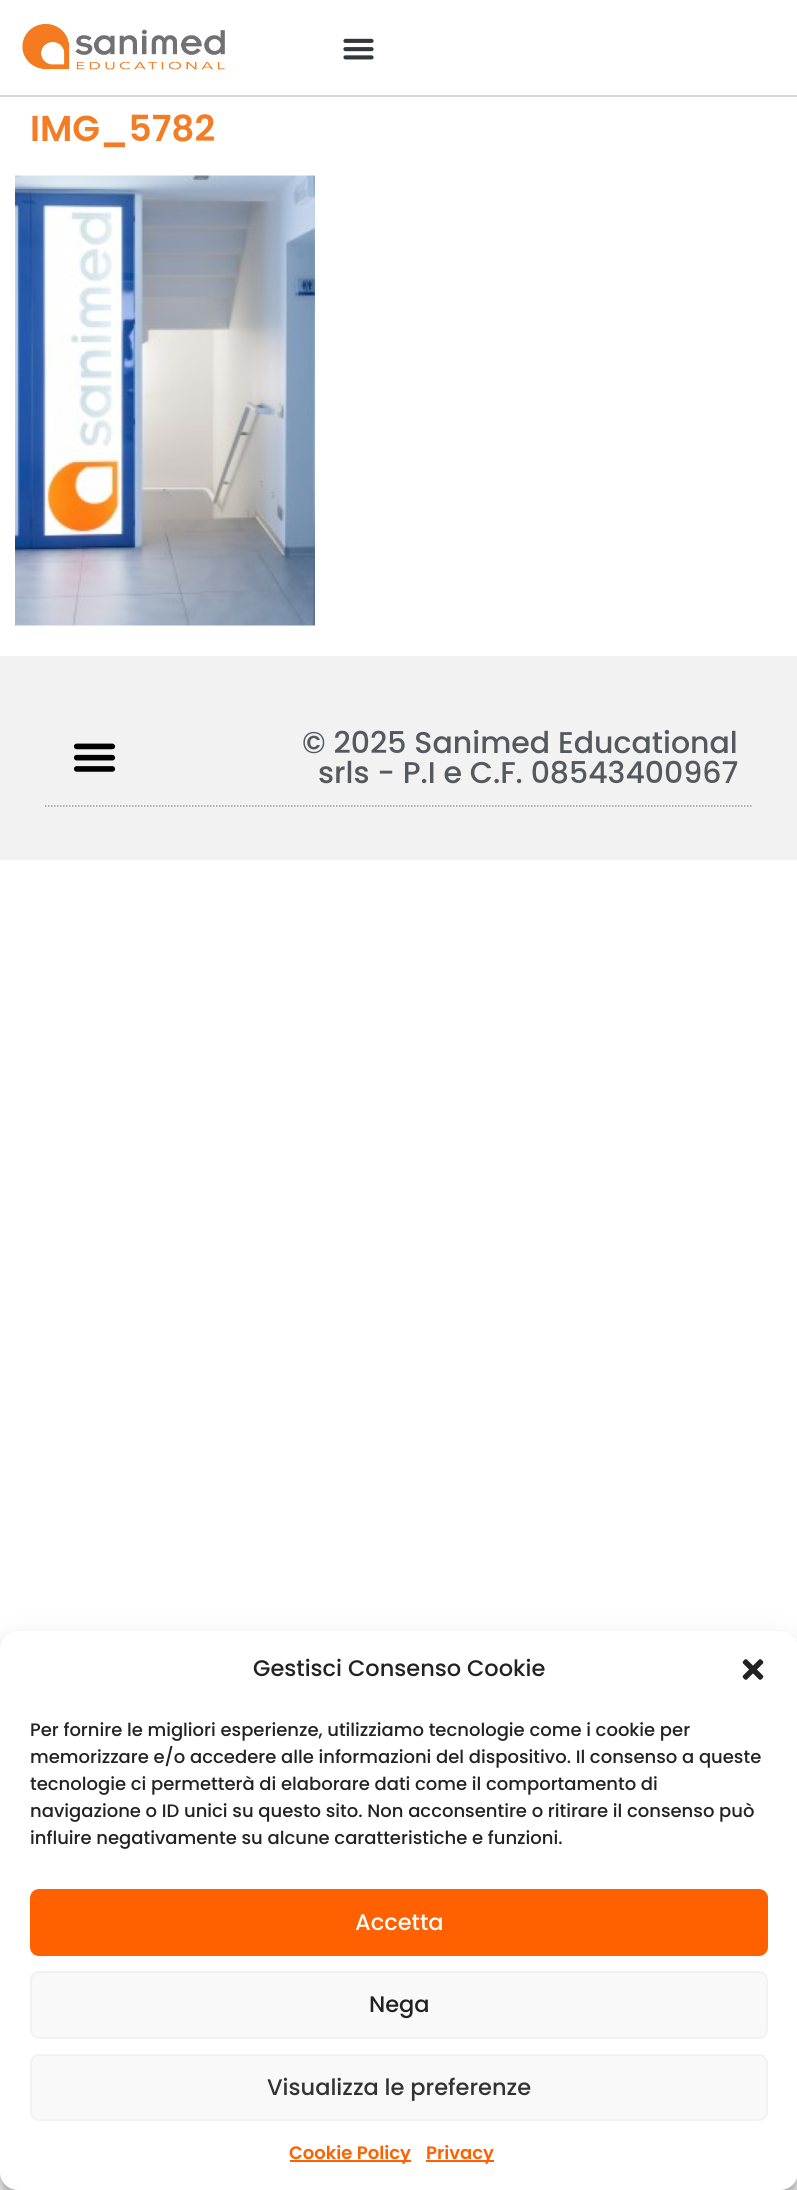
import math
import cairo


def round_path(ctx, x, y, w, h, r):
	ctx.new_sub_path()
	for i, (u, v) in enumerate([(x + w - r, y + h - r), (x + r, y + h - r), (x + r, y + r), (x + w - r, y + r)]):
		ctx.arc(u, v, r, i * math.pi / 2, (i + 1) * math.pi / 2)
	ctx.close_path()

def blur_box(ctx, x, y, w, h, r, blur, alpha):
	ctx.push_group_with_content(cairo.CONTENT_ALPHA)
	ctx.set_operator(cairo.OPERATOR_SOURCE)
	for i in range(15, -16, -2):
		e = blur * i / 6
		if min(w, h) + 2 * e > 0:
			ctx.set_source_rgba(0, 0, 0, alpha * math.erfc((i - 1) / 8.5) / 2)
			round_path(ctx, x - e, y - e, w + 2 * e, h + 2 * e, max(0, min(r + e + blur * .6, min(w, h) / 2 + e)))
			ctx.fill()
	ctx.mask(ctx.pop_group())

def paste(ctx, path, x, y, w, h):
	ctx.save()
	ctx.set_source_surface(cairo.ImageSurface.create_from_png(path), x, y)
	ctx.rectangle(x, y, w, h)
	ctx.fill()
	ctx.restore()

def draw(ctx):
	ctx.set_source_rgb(1, 1, 1)
	ctx.paint()
	ctx.set_source_rgb(0.839, 0.839, 0.839)
	ctx.rectangle(0, 95, 797, 2)
	ctx.fill()
	paste(ctx, 'media/1.png', 22, 24, 203, 46)
	paste(ctx, 'media/2.png', 343, 38, 31, 22)
	ctx.select_font_face('Poppins SemiBold')
	ctx.set_font_size(36)
	ctx.set_source_rgb(0.957, 0.486, 0.141)
	ctx.move_to(30, 141)
	ctx.show_text('IMG_5782')
	paste(ctx, 'media/3.png', 15, 175, 300, 451)
	ctx.set_source_rgb(0.949, 0.949, 0.949)
	ctx.rectangle(0, 656, 797, 204)
	ctx.fill()
	ctx.new_path()
	ctx.move_to(45, 806)
	ctx.line_to(753, 806)
	ctx.set_source_rgb(0.608, 0.608, 0.608)
	ctx.set_line_width(1.5)
	ctx.set_dash([1.5, 1.5])
	ctx.stroke()
	paste(ctx, 'media/4.png', 73, 743, 43, 29)
	ctx.select_font_face('Poppins Medium')
	ctx.set_font_size(30)
	ctx.set_source_rgb(0.329, 0.349, 0.373)
	ctx.move_to(302, 753)
	ctx.show_text('© 2025 Sanimed Educational')
	ctx.move_to(318, 783)
	ctx.show_text('srls - P.I e C.F. 08543400967')
	ctx.set_source_rgb(0, 0, 0)
	blur_box(ctx, 0, 1640, 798, 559, 18, 4.5, 0.23)
	blur_box(ctx, 0, 1646, 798, 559, 18, 15, 0.19)
	ctx.set_source_rgb(1, 1, 1)
	round_path(ctx, 0, 1631, 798, 559, 18)
	ctx.fill()
	ctx.set_font_size(22.5)
	ctx.set_source_rgb(0.133, 0.133, 0.133)
	ctx.move_to(253, 1676)
	ctx.show_text('Gestisci Consenso Cookie')
	paste(ctx, 'media/5.png', 742, 1659, 22, 21)
	ctx.set_font_size(18)
	for x, y, s in [
		(30, 1736, 'Per fornire le migliori esperienze, utilizziamo tecnologie come i cookie per'),
		(30, 1763, 'memorizzare e/o accedere alle informazioni del dispositivo. Il consenso a queste'),
		(30, 1790, 'tecnologie ci permetterà di elaborare dati come il comportamento di'),
		(30, 1817, 'navigazione o ID unici su questo sito. Non acconsentire o ritirare il consenso può'),
		(30, 1844, 'influire negativamente su alcune caratteristiche e funzioni.'),
	]:
		ctx.move_to(x, y)
		ctx.show_text(s)
	ctx.set_source_rgb(1, 0.38, 0)
	round_path(ctx, 31, 1890, 736, 65, 8)
	ctx.fill_preserve()
	ctx.set_line_width(2)
	ctx.set_dash([])
	ctx.stroke()
	ctx.set_font_size(22.5)
	ctx.set_source_rgb(1, 1, 1)
	ctx.move_to(355, 1930)
	ctx.show_text('Accetta')
	ctx.set_source_rgb(0.976, 0.976, 0.976)
	round_path(ctx, 31, 1972, 736, 66, 8)
	ctx.fill_preserve()
	ctx.set_source_rgb(0.949, 0.949, 0.949)
	ctx.stroke()
	ctx.set_source_rgb(0.133, 0.133, 0.133)
	ctx.move_to(369, 2012)
	ctx.show_text('Nega')
	ctx.set_source_rgb(0.976, 0.976, 0.976)
	round_path(ctx, 31, 2055, 736, 65, 8)
	ctx.fill_preserve()
	ctx.set_source_rgb(0.949, 0.949, 0.949)
	ctx.stroke()
	ctx.set_source_rgb(0.2, 0.2, 0.2)
	ctx.move_to(267, 2095)
	ctx.show_text('Visualizza le preferenze')
	ctx.set_source_rgb(1, 0.38, 0)
	ctx.rectangle(290, 2160, 121, 2)
	ctx.fill()
	ctx.select_font_face('Poppins SemiBold')
	ctx.set_font_size(18)
	ctx.move_to(289, 2159)
	ctx.show_text('Cookie Policy')
	ctx.rectangle(426, 2160, 68, 2)
	ctx.fill()
	ctx.move_to(426, 2159)
	ctx.show_text('Privacy')


surface = cairo.ImageSurface(cairo.FORMAT_RGB24, 797, 2190)
ctx = cairo.Context(surface)
options = cairo.FontOptions()
options.set_hint_metrics(cairo.HINT_METRICS_OFF)
options.set_hint_style(cairo.HINT_STYLE_NONE)
ctx.set_font_options(options)
ctx.set_miter_limit(4)
draw(ctx)
surface.write_to_png('image.png')
